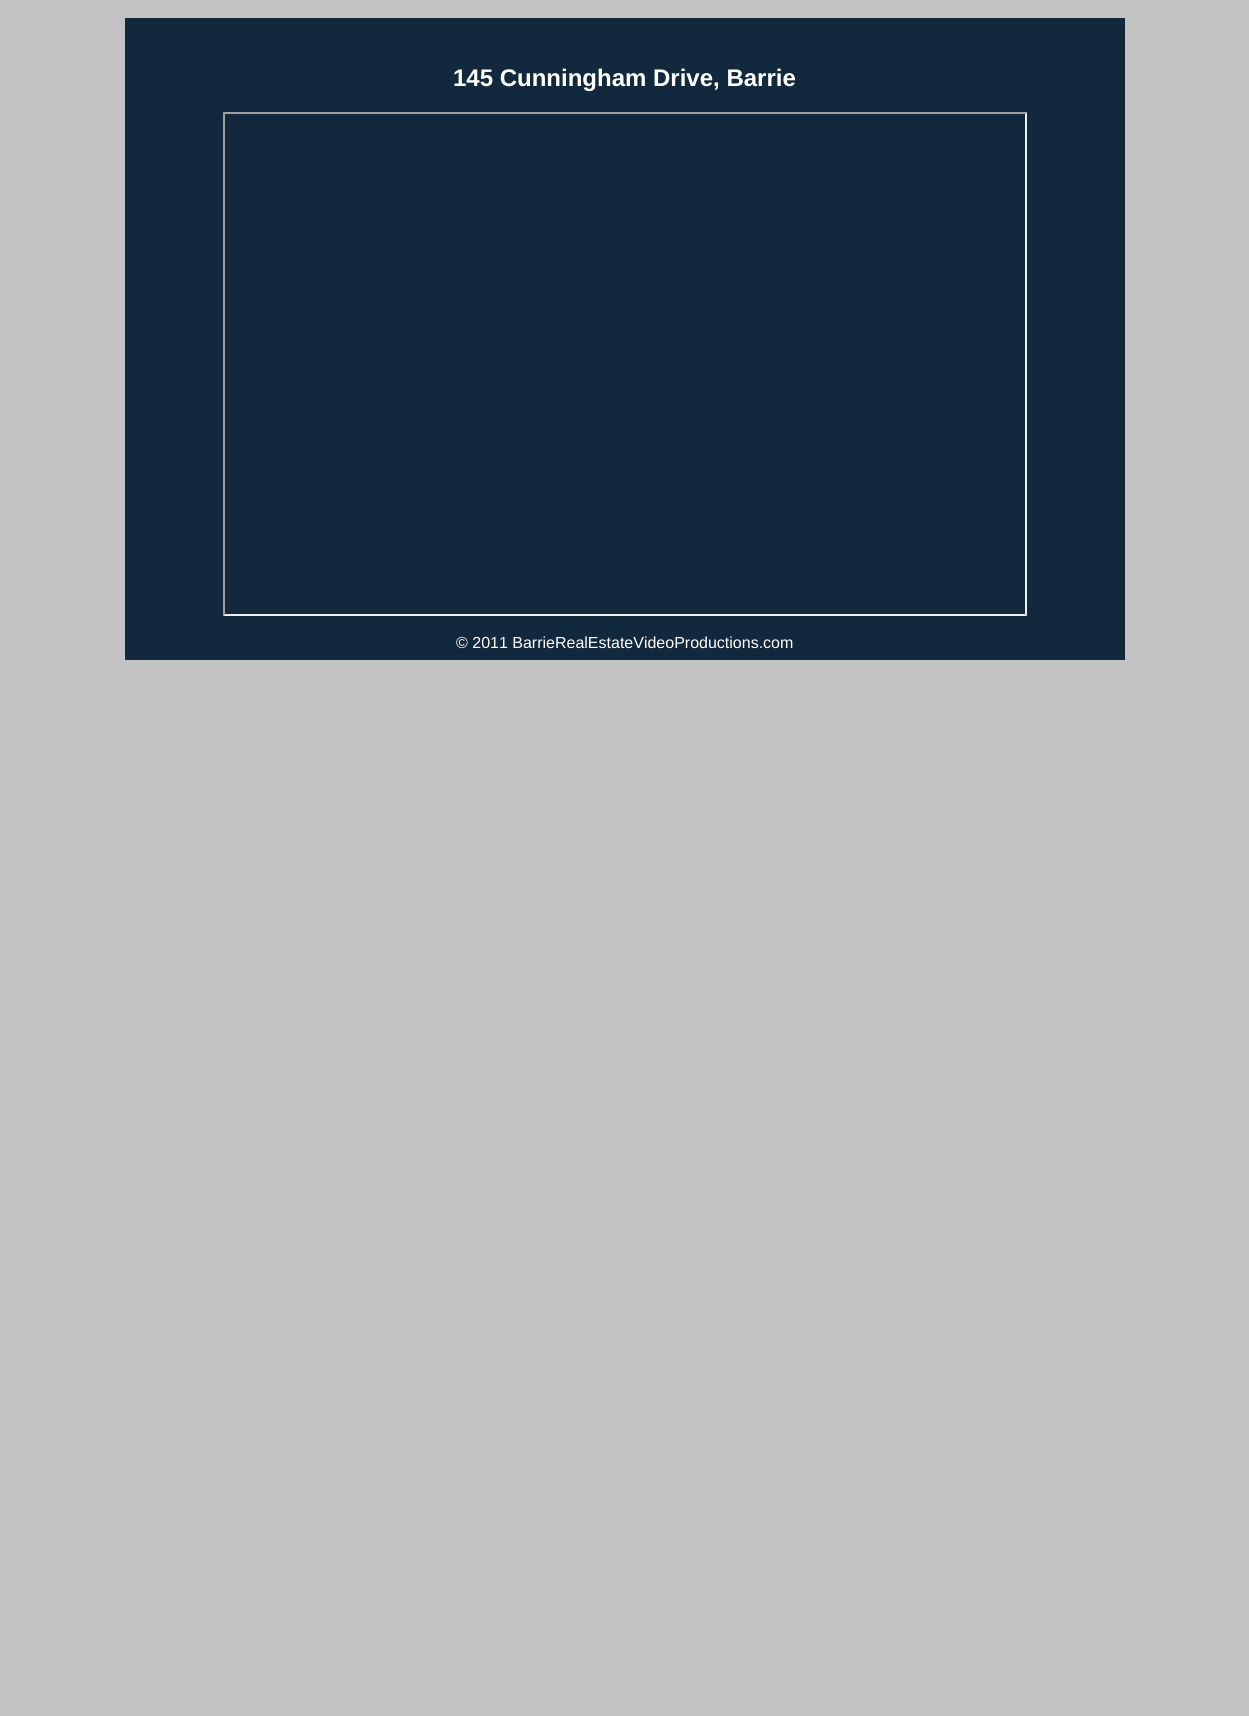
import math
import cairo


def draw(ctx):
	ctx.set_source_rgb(0.761, 0.761, 0.761)
	ctx.paint()
	ctx.set_source_rgb(0.071, 0.157, 0.235)
	ctx.rectangle(125, 18, 1000, 642)
	ctx.fill()
	ctx.select_font_face('Liberation Sans', cairo.FONT_SLANT_NORMAL, cairo.FONT_WEIGHT_BOLD)
	ctx.set_font_size(24)
	ctx.set_source_rgb(1, 1, 1)
	ctx.move_to(453, 86)
	ctx.show_text('145 Cunningham Drive, Barrie')
	ctx.set_source_rgb(0.624, 0.624, 0.624)
	ctx.new_path()
	ctx.move_to(223, 112)
	ctx.line_to(1027, 112)
	ctx.line_to(1025, 114)
	ctx.line_to(225, 114)
	ctx.close_path()
	ctx.fill()
	ctx.set_source_rgb(0.933, 0.933, 0.933)
	ctx.new_path()
	ctx.move_to(1027, 112)
	ctx.line_to(1027, 616)
	ctx.line_to(1025, 614)
	ctx.line_to(1025, 114)
	ctx.close_path()
	ctx.fill()
	ctx.new_path()
	ctx.move_to(1027, 616)
	ctx.line_to(223, 616)
	ctx.line_to(225, 614)
	ctx.line_to(1025, 614)
	ctx.close_path()
	ctx.fill()
	ctx.set_source_rgb(0.624, 0.624, 0.624)
	ctx.new_path()
	ctx.move_to(223, 616)
	ctx.line_to(223, 112)
	ctx.line_to(225, 114)
	ctx.line_to(225, 614)
	ctx.close_path()
	ctx.fill()
	ctx.select_font_face('Liberation Sans')
	ctx.set_font_size(16)
	ctx.set_source_rgb(1, 1, 1)
	ctx.move_to(456, 648)
	ctx.show_text('© 2011 BarrieRealEstateVideoProductions.com')


surface = cairo.ImageSurface(cairo.FORMAT_RGB24, 1249, 1716)
ctx = cairo.Context(surface)
options = cairo.FontOptions()
options.set_hint_metrics(cairo.HINT_METRICS_OFF)
options.set_hint_style(cairo.HINT_STYLE_NONE)
ctx.set_font_options(options)
ctx.set_miter_limit(4)
draw(ctx)
surface.write_to_png('image.png')
